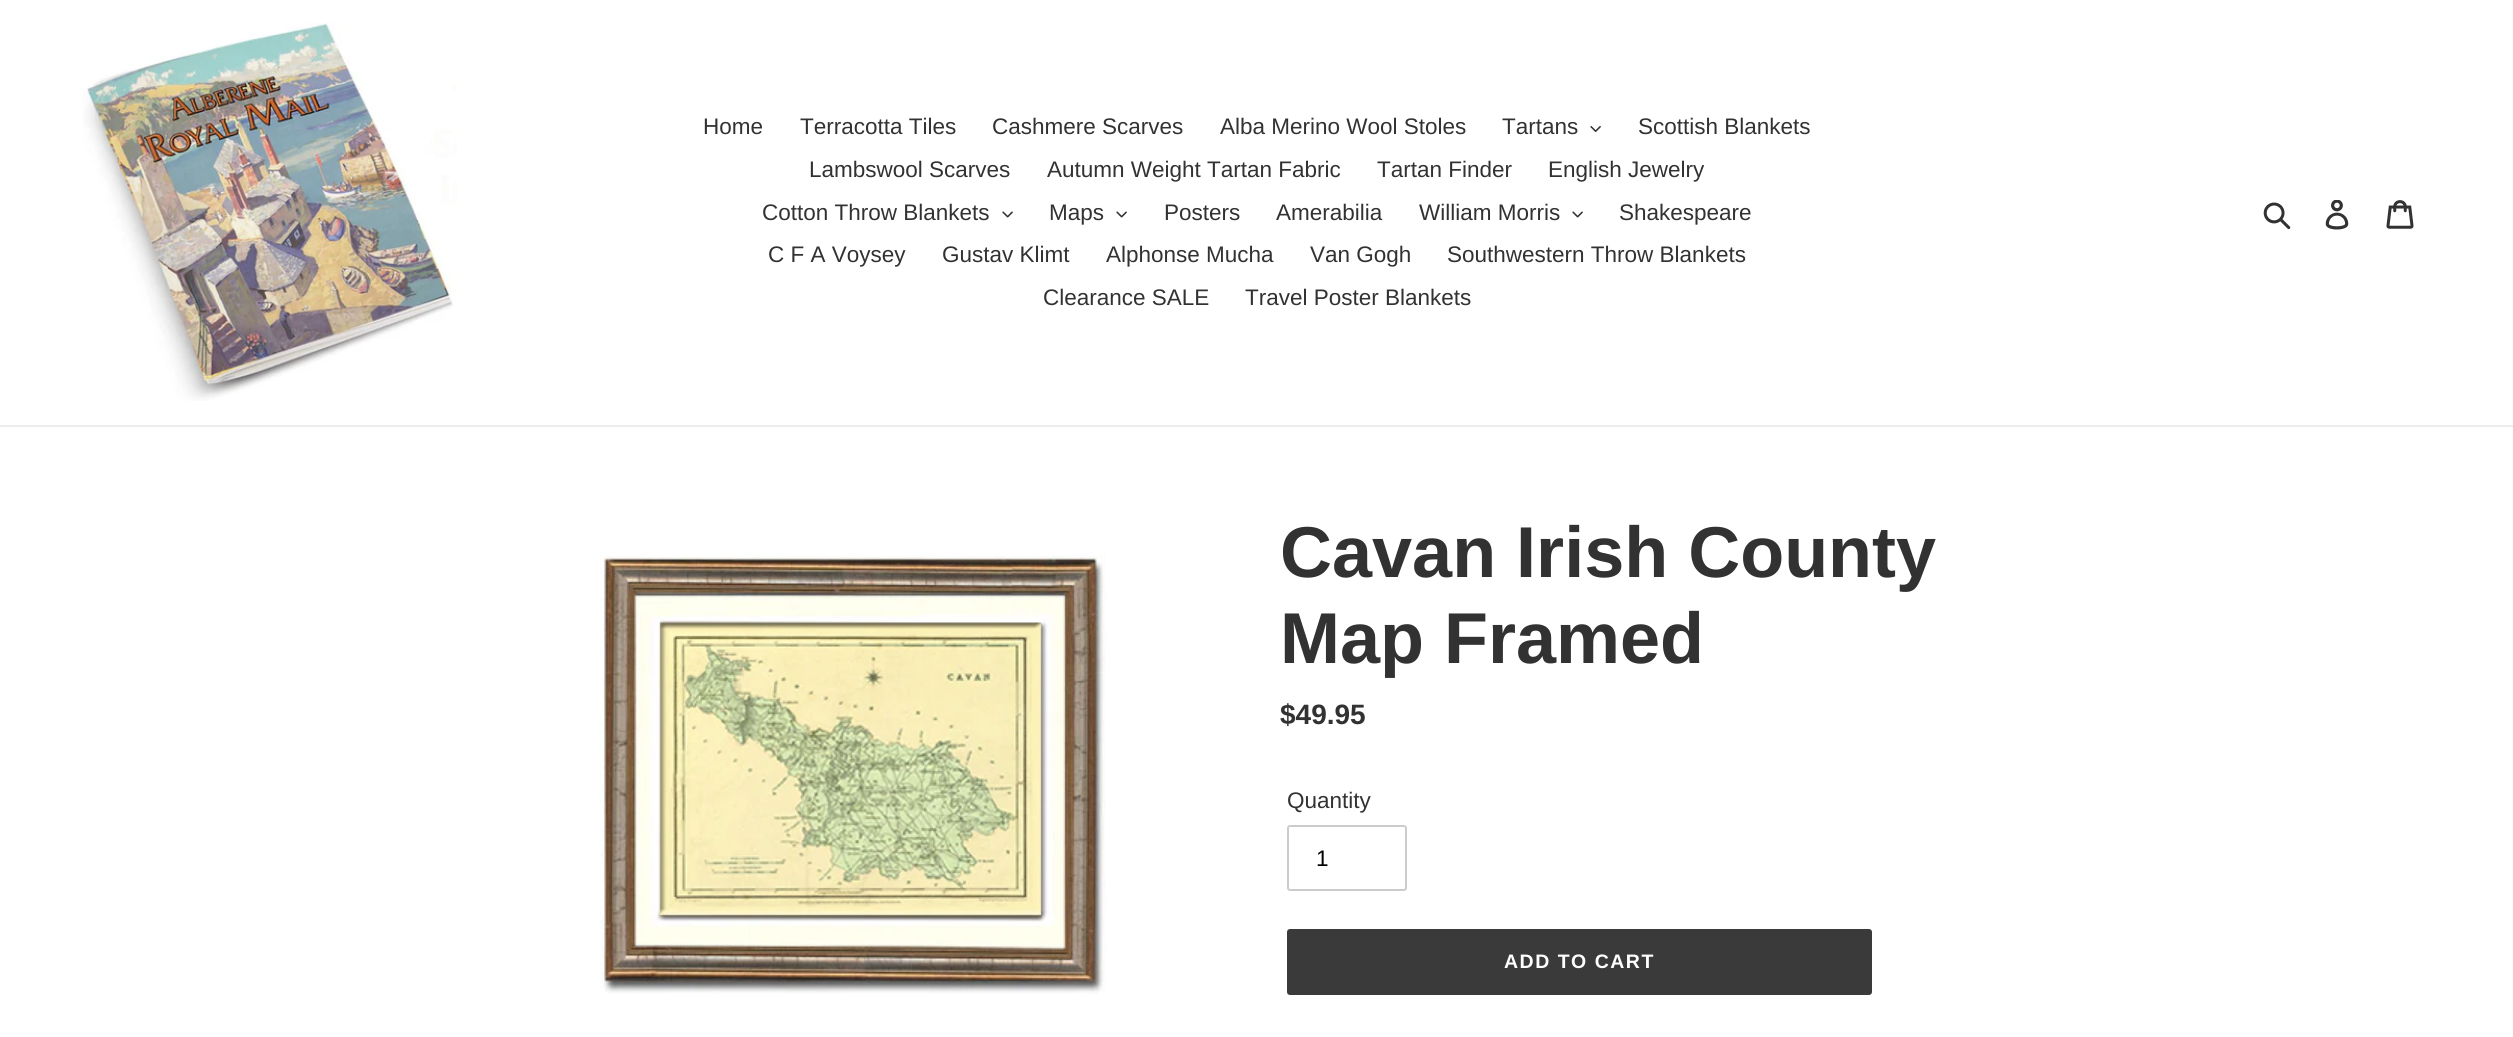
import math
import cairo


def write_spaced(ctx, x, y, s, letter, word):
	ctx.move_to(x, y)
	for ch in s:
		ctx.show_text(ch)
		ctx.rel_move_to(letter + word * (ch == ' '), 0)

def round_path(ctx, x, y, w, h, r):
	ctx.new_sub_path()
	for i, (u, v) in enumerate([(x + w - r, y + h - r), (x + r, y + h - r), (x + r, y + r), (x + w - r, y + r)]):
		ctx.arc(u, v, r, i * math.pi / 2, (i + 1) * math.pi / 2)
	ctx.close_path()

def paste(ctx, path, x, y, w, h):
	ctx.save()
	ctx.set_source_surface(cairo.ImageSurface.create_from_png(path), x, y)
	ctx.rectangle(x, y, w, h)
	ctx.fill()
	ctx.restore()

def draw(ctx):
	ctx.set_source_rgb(1, 1, 1)
	ctx.paint()
	ctx.set_source_rgb(0.922, 0.922, 0.922)
	ctx.rectangle(0, 425, 2513, 2)
	ctx.fill()
	paste(ctx, 'media/1.png', 82, 22, 375, 379)
	ctx.select_font_face('Liberation Sans')
	ctx.set_font_size(22.5)
	ctx.set_source_rgb(0.2, 0.196, 0.196)
	for x, y, s in [
		(703, 134, 'Home'),
		(800, 134, 'Terracotta Tiles'),
		(992, 134, 'Cashmere Scarves'),
		(1220, 134, 'Alba Merino Wool Stoles'),
		(1502, 134, 'Tartans'),
	]:
		ctx.move_to(x, y)
		ctx.show_text(s)
	paste(ctx, 'media/2.png', 1590, 126, 11, 6)
	for x, y, s in [
		(1638, 134, 'Scottish Blankets'),
		(809, 177, 'Lambswool Scarves'),
		(1047, 177, 'Autumn Weight Tartan Fabric'),
		(1377, 177, 'Tartan Finder'),
		(1548, 177, 'English Jewelry'),
		(762, 220, 'Cotton Throw Blankets'),
	]:
		ctx.move_to(x, y)
		ctx.show_text(s)
	paste(ctx, 'media/3.png', 1002, 211, 11, 7)
	ctx.move_to(1049, 220)
	ctx.show_text('Maps')
	paste(ctx, 'media/3.png', 1116, 211, 11, 7)
	for x, y, s in [
		(1164, 220, 'Posters'),
		(1276, 220, 'Amerabilia'),
		(1419, 220, 'William Morris'),
	]:
		ctx.move_to(x, y)
		ctx.show_text(s)
	paste(ctx, 'media/3.png', 1572, 211, 11, 7)
	for x, y, s in [
		(1619, 220, 'Shakespeare'),
		(768, 262, 'C F A Voysey'),
		(942, 262, 'Gustav Klimt'),
		(1106, 262, 'Alphonse Mucha'),
		(1310, 262, 'Van Gogh'),
		(1447, 262, 'Southwestern Throw Blankets'),
		(1043, 305, 'Clearance SALE'),
		(1245, 305, 'Travel Poster Blankets'),
	]:
		ctx.move_to(x, y)
		ctx.show_text(s)
	paste(ctx, 'media/4.png', 2263, 202, 28, 28)
	paste(ctx, 'media/5.png', 2325, 200, 24, 30)
	paste(ctx, 'media/6.png', 2386, 200, 28, 29)
	paste(ctx, 'media/7.png', 600, 555, 506, 439)
	ctx.select_font_face('Liberation Sans', cairo.FONT_SLANT_NORMAL, cairo.FONT_WEIGHT_BOLD)
	ctx.set_font_size(72)
	ctx.move_to(1280, 577)
	ctx.show_text('Cavan Irish County')
	ctx.move_to(1280, 663)
	ctx.show_text('Map Framed')
	ctx.set_font_size(28)
	ctx.move_to(1280, 724)
	ctx.show_text('$49.95')
	ctx.select_font_face('Liberation Sans')
	ctx.set_font_size(22.5)
	ctx.move_to(1287, 808)
	ctx.show_text('Quantity')
	round_path(ctx, 1288, 826, 118, 64, 2)
	ctx.set_source_rgb(0.8, 0.8, 0.8)
	ctx.stroke()
	ctx.set_source_rgb(0, 0, 0)
	ctx.move_to(1316, 866)
	ctx.show_text('1')
	ctx.set_source_rgb(0.227, 0.227, 0.227)
	round_path(ctx, 1287, 929, 585, 66, 3)
	ctx.fill()
	ctx.select_font_face('Liberation Sans', cairo.FONT_SLANT_NORMAL, cairo.FONT_WEIGHT_BOLD)
	ctx.set_font_size(19.5)
	ctx.set_source_rgb(1, 1, 1)
	write_spaced(ctx, 1504, 968, 'ADD TO CART', 1.5, 0)


surface = cairo.ImageSurface(cairo.FORMAT_RGB24, 2513, 1037)
ctx = cairo.Context(surface)
options = cairo.FontOptions()
options.set_hint_metrics(cairo.HINT_METRICS_OFF)
options.set_hint_style(cairo.HINT_STYLE_NONE)
ctx.set_font_options(options)
ctx.set_miter_limit(4)
draw(ctx)
surface.write_to_png('image.png')
